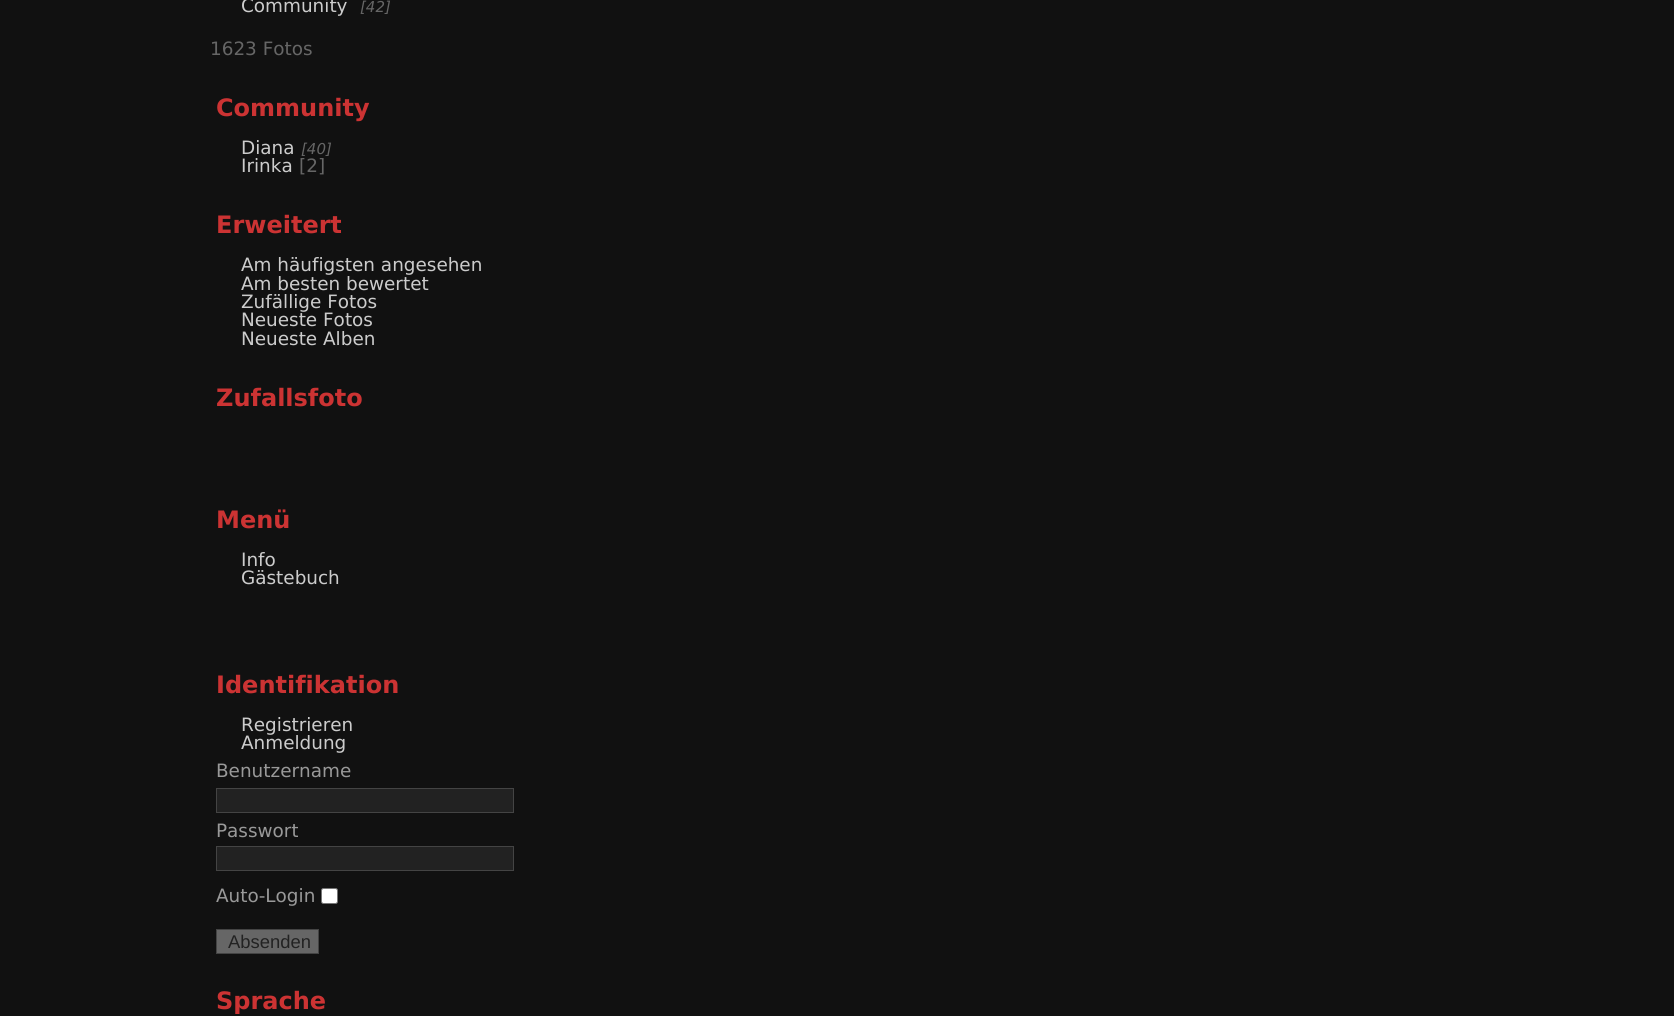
import math
import cairo


def round_path(ctx, x, y, w, h, r):
	ctx.new_sub_path()
	for i, (u, v) in enumerate([(x + w - r, y + h - r), (x + r, y + h - r), (x + r, y + r), (x + w - r, y + r)]):
		ctx.arc(u, v, r, i * math.pi / 2, (i + 1) * math.pi / 2)
	ctx.close_path()

def draw(ctx):
	ctx.set_source_rgb(0.067, 0.067, 0.067)
	ctx.paint()
	ctx.select_font_face('DejaVu Sans')
	ctx.set_font_size(18.4)
	ctx.set_source_rgb(0.8, 0.8, 0.8)
	ctx.move_to(241, 12)
	ctx.show_text('Community')
	ctx.select_font_face('DejaVu Sans', cairo.FONT_SLANT_ITALIC)
	ctx.set_font_size(15)
	ctx.set_source_rgb(0.4, 0.4, 0.4)
	ctx.move_to(360, 12)
	ctx.show_text('[42]')
	ctx.select_font_face('DejaVu Sans')
	ctx.set_font_size(18.4)
	ctx.move_to(210, 55)
	ctx.show_text('1623 Fotos')
	ctx.select_font_face('DejaVu Sans', cairo.FONT_SLANT_NORMAL, cairo.FONT_WEIGHT_BOLD)
	ctx.set_font_size(24)
	ctx.set_source_rgb(0.8, 0.2, 0.2)
	ctx.move_to(216, 116)
	ctx.show_text('Community')
	ctx.select_font_face('DejaVu Sans')
	ctx.set_font_size(18.4)
	ctx.set_source_rgb(0.8, 0.8, 0.8)
	ctx.move_to(241, 154)
	ctx.show_text('Diana')
	ctx.select_font_face('DejaVu Sans', cairo.FONT_SLANT_ITALIC)
	ctx.set_font_size(15)
	ctx.set_source_rgb(0.4, 0.4, 0.4)
	ctx.move_to(301, 154)
	ctx.show_text('[40]')
	ctx.select_font_face('DejaVu Sans')
	ctx.set_font_size(18.4)
	ctx.set_source_rgb(0.8, 0.8, 0.8)
	ctx.move_to(241, 172)
	ctx.show_text('Irinka')
	ctx.set_source_rgb(0.4, 0.4, 0.4)
	ctx.move_to(299, 172)
	ctx.show_text('[2]')
	ctx.select_font_face('DejaVu Sans', cairo.FONT_SLANT_NORMAL, cairo.FONT_WEIGHT_BOLD)
	ctx.set_font_size(24)
	ctx.set_source_rgb(0.8, 0.2, 0.2)
	ctx.move_to(216, 233)
	ctx.show_text('Erweitert')
	ctx.select_font_face('DejaVu Sans')
	ctx.set_font_size(18.4)
	ctx.set_source_rgb(0.8, 0.8, 0.8)
	for x, y, s in [
		(241, 271, 'Am häufigsten angesehen'),
		(241, 290, 'Am besten bewertet'),
		(241, 308, 'Zufällige Fotos'),
		(241, 326, 'Neueste Fotos'),
		(241, 345, 'Neueste Alben'),
	]:
		ctx.move_to(x, y)
		ctx.show_text(s)
	ctx.select_font_face('DejaVu Sans', cairo.FONT_SLANT_NORMAL, cairo.FONT_WEIGHT_BOLD)
	ctx.set_font_size(24)
	ctx.set_source_rgb(0.8, 0.2, 0.2)
	ctx.move_to(216, 406)
	ctx.show_text('Zufallsfoto')
	ctx.move_to(216, 528)
	ctx.show_text('Menü')
	ctx.select_font_face('DejaVu Sans')
	ctx.set_font_size(18.4)
	ctx.set_source_rgb(0.8, 0.8, 0.8)
	ctx.move_to(241, 566)
	ctx.show_text('Info')
	ctx.move_to(241, 584)
	ctx.show_text('Gästebuch')
	ctx.select_font_face('DejaVu Sans', cairo.FONT_SLANT_NORMAL, cairo.FONT_WEIGHT_BOLD)
	ctx.set_font_size(24)
	ctx.set_source_rgb(0.8, 0.2, 0.2)
	ctx.move_to(216, 693)
	ctx.show_text('Identifikation')
	ctx.select_font_face('DejaVu Sans')
	ctx.set_font_size(18.4)
	ctx.set_source_rgb(0.8, 0.8, 0.8)
	ctx.move_to(241, 731)
	ctx.show_text('Registrieren')
	ctx.move_to(241, 749)
	ctx.show_text('Anmeldung')
	ctx.set_source_rgb(0.6, 0.6, 0.6)
	ctx.move_to(216, 777)
	ctx.show_text('Benutzername')
	ctx.set_source_rgb(0.133, 0.133, 0.133)
	ctx.rectangle(216.5, 788.5, 297, 24)
	ctx.fill_preserve()
	ctx.set_source_rgb(0.267, 0.267, 0.267)
	ctx.set_line_width(1)
	ctx.stroke()
	ctx.set_source_rgb(0.6, 0.6, 0.6)
	ctx.move_to(216, 837)
	ctx.show_text('Passwort')
	ctx.set_source_rgb(0.133, 0.133, 0.133)
	ctx.rectangle(216.5, 846.5, 297, 24)
	ctx.fill_preserve()
	ctx.set_source_rgb(0.267, 0.267, 0.267)
	ctx.stroke()
	ctx.set_source_rgb(0.6, 0.6, 0.6)
	ctx.move_to(216, 902)
	ctx.show_text('Auto-Login')
	ctx.set_source_rgb(1, 1, 1)
	round_path(ctx, 321.5, 888.5, 16, 15, 2)
	ctx.fill_preserve()
	ctx.set_source_rgb(0.463, 0.463, 0.463)
	ctx.stroke()
	ctx.set_source_rgb(0.4, 0.4, 0.4)
	ctx.rectangle(216.5, 929.5, 102, 24)
	ctx.fill_preserve()
	ctx.set_source_rgb(0.267, 0.267, 0.267)
	ctx.stroke()
	ctx.select_font_face('Liberation Sans')
	ctx.set_source_rgb(0.133, 0.133, 0.133)
	ctx.move_to(228, 948)
	ctx.show_text('Absenden')
	ctx.select_font_face('DejaVu Sans', cairo.FONT_SLANT_NORMAL, cairo.FONT_WEIGHT_BOLD)
	ctx.set_font_size(24)
	ctx.set_source_rgb(0.8, 0.2, 0.2)
	ctx.move_to(216, 1009)
	ctx.show_text('Sprache')


surface = cairo.ImageSurface(cairo.FORMAT_RGB24, 1674, 1016)
ctx = cairo.Context(surface)
options = cairo.FontOptions()
options.set_hint_metrics(cairo.HINT_METRICS_OFF)
options.set_hint_style(cairo.HINT_STYLE_NONE)
ctx.set_font_options(options)
ctx.set_miter_limit(4)
draw(ctx)
surface.write_to_png('image.png')
